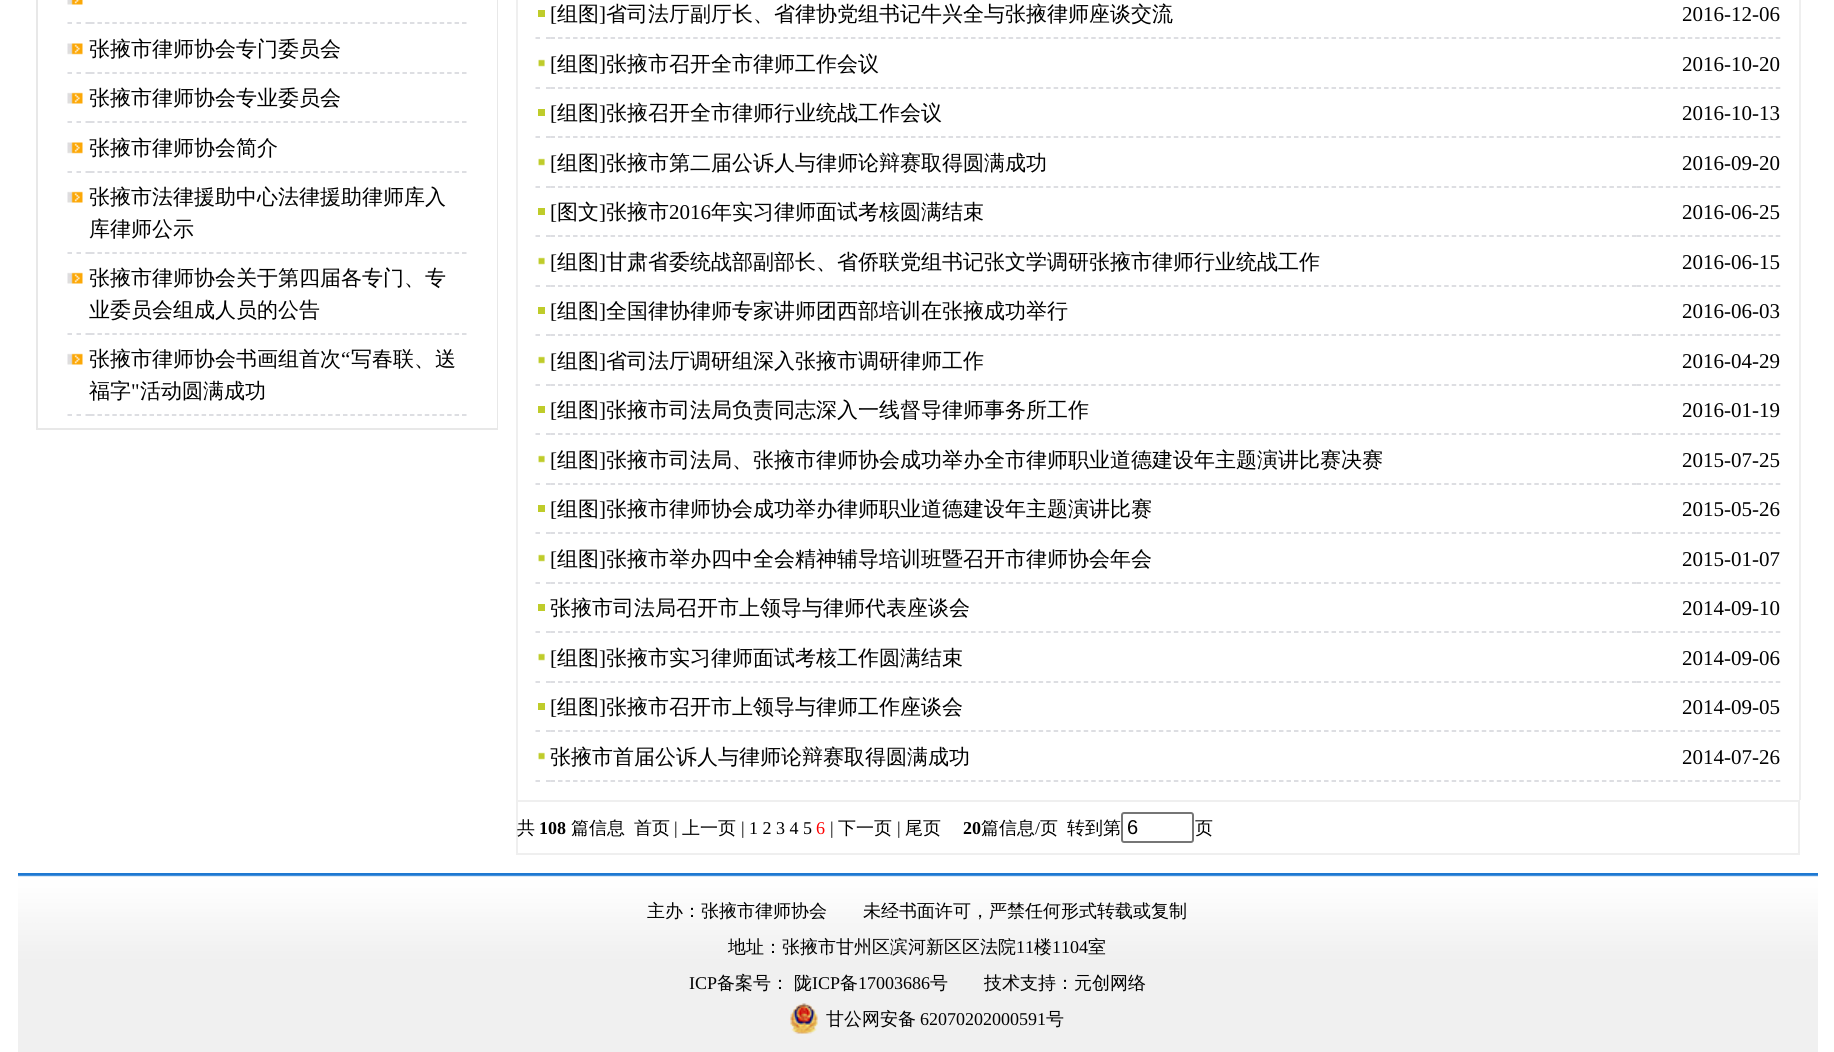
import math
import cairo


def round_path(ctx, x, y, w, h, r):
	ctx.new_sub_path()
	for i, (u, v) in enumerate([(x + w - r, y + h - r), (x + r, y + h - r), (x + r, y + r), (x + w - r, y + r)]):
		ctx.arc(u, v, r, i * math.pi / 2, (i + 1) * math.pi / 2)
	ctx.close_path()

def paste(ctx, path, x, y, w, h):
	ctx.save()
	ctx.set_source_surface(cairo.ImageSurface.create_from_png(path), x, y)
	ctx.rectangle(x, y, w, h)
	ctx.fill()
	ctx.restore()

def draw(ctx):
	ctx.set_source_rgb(1, 1, 1)
	ctx.paint()
	ctx.set_source_rgb(0.91, 0.91, 0.91)
	ctx.rectangle(497, 0, 1, 429)
	ctx.rectangle(36, 428, 462, 2)
	ctx.rectangle(36, 0, 2, 429)
	ctx.fill()
	ctx.new_path()
	ctx.move_to(67.5, 23)
	ctx.line_to(72, 23)
	ctx.move_to(76.5, 23)
	ctx.line_to(81, 23)
	ctx.move_to(85.5, 23)
	ctx.line_to(90, 23)
	ctx.set_source_rgb(0.824, 0.827, 0.851)
	ctx.set_line_width(1.5)
	ctx.stroke()
	paste(ctx, 'media/1.png', 67, 0, 16, 5)
	ctx.new_path()
	ctx.move_to(90, 23)
	ctx.line_to(466.5, 23)
	ctx.set_dash([4.5, 2.94])
	ctx.stroke()
	ctx.new_path()
	ctx.move_to(67.5, 73)
	ctx.line_to(72, 73)
	ctx.move_to(76.5, 73)
	ctx.line_to(81, 73)
	ctx.move_to(85.5, 73)
	ctx.line_to(90, 73)
	ctx.set_dash([])
	ctx.stroke()
	paste(ctx, 'media/2.png', 67, 43, 16, 12)
	ctx.new_path()
	ctx.move_to(90, 73)
	ctx.line_to(466.5, 73)
	ctx.set_dash([4.5, 2.94])
	ctx.stroke()
	ctx.select_font_face('WenQuanYi Zen Hei Medium')
	ctx.set_font_size(21)
	ctx.set_source_rgb(0, 0, 0)
	ctx.move_to(89, 56)
	ctx.show_text('张掖市律师协会专门委员会')
	ctx.new_path()
	ctx.move_to(67.5, 122)
	ctx.line_to(72, 122)
	ctx.move_to(76.5, 122)
	ctx.line_to(81, 122)
	ctx.move_to(85.5, 122)
	ctx.line_to(90, 122)
	ctx.set_source_rgb(0.824, 0.827, 0.851)
	ctx.set_dash([])
	ctx.stroke()
	paste(ctx, 'media/3.png', 67, 92, 16, 12)
	ctx.new_path()
	ctx.move_to(90, 122)
	ctx.line_to(466.5, 122)
	ctx.set_dash([4.5, 2.94])
	ctx.stroke()
	ctx.set_source_rgb(0, 0, 0)
	ctx.move_to(89, 105)
	ctx.show_text('张掖市律师协会专业委员会')
	ctx.new_path()
	ctx.move_to(67.5, 172)
	ctx.line_to(72, 172)
	ctx.move_to(76.5, 172)
	ctx.line_to(81, 172)
	ctx.move_to(85.5, 172)
	ctx.line_to(90, 172)
	ctx.set_source_rgb(0.824, 0.827, 0.851)
	ctx.set_dash([])
	ctx.stroke()
	paste(ctx, 'media/2.png', 67, 142, 16, 12)
	ctx.new_path()
	ctx.move_to(90, 172)
	ctx.line_to(466.5, 172)
	ctx.set_dash([4.5, 2.94])
	ctx.stroke()
	ctx.set_source_rgb(0, 0, 0)
	ctx.move_to(89, 155)
	ctx.show_text('张掖市律师协会简介')
	ctx.new_path()
	ctx.move_to(67.5, 253)
	ctx.line_to(72, 253)
	ctx.move_to(76.5, 253)
	ctx.line_to(81, 253)
	ctx.move_to(85.5, 253)
	ctx.line_to(90, 253)
	ctx.set_source_rgb(0.824, 0.827, 0.851)
	ctx.set_dash([])
	ctx.stroke()
	paste(ctx, 'media/3.png', 67, 191, 16, 12)
	ctx.new_path()
	ctx.move_to(90, 253)
	ctx.line_to(466.5, 253)
	ctx.set_dash([4.5, 2.94])
	ctx.stroke()
	ctx.set_source_rgb(0, 0, 0)
	ctx.move_to(89, 204)
	ctx.show_text('张掖市法律援助中心法律援助律师库入')
	ctx.move_to(89, 236)
	ctx.show_text('库律师公示')
	ctx.new_path()
	ctx.move_to(67.5, 334)
	ctx.line_to(72, 334)
	ctx.move_to(76.5, 334)
	ctx.line_to(81, 334)
	ctx.move_to(85.5, 334)
	ctx.line_to(90, 334)
	ctx.set_source_rgb(0.824, 0.827, 0.851)
	ctx.set_dash([])
	ctx.stroke()
	paste(ctx, 'media/3.png', 67, 272, 16, 12)
	ctx.new_path()
	ctx.move_to(90, 334)
	ctx.line_to(466.5, 334)
	ctx.set_dash([4.5, 2.94])
	ctx.stroke()
	ctx.set_source_rgb(0, 0, 0)
	ctx.move_to(89, 285)
	ctx.show_text('张掖市律师协会关于第四届各专门、专')
	ctx.move_to(89, 317)
	ctx.show_text('业委员会组成人员的公告')
	ctx.new_path()
	ctx.move_to(67.5, 415)
	ctx.line_to(72, 415)
	ctx.move_to(76.5, 415)
	ctx.line_to(81, 415)
	ctx.move_to(85.5, 415)
	ctx.line_to(90, 415)
	ctx.set_source_rgb(0.824, 0.827, 0.851)
	ctx.set_dash([])
	ctx.stroke()
	paste(ctx, 'media/3.png', 67, 353, 16, 12)
	ctx.new_path()
	ctx.move_to(90, 415)
	ctx.line_to(466.5, 415)
	ctx.set_dash([4.5, 2.94])
	ctx.stroke()
	ctx.set_source_rgb(0, 0, 0)
	ctx.move_to(89, 366)
	ctx.show_text('张掖市律师协会书画组首次')
	ctx.select_font_face('Liberation Serif')
	ctx.move_to(341, 366)
	ctx.show_text('“')
	ctx.select_font_face('WenQuanYi Zen Hei Medium')
	ctx.move_to(351, 366)
	ctx.show_text('写春联、送')
	ctx.move_to(89, 398)
	ctx.show_text('福字')
	ctx.select_font_face('Liberation Serif')
	ctx.move_to(131, 398)
	ctx.show_text('"')
	ctx.select_font_face('WenQuanYi Zen Hei Medium')
	ctx.move_to(140, 398)
	ctx.show_text('活动圆满成功')
	ctx.set_source_rgb(0.937, 0.937, 0.937)
	ctx.rectangle(1799, 0, 2, 800)
	ctx.fill()
	ctx.rectangle(516, 0, 2, 800)
	ctx.fill()
	ctx.new_path()
	ctx.move_to(535.5, 38)
	ctx.line_to(540, 38)
	ctx.move_to(546, 38)
	ctx.line_to(550.5, 38)
	ctx.set_source_rgb(0.824, 0.827, 0.851)
	ctx.set_dash([])
	ctx.stroke()
	ctx.set_source_rgb(0.749, 0.8, 0.165)
	ctx.rectangle(538, 10, 7, 7)
	ctx.fill()
	ctx.new_path()
	ctx.move_to(550.5, 38)
	ctx.line_to(1636.5, 38)
	ctx.set_source_rgb(0.824, 0.827, 0.851)
	ctx.set_dash([4.5, 3.01])
	ctx.stroke()
	ctx.select_font_face('Liberation Serif')
	ctx.set_source_rgb(0, 0, 0)
	ctx.move_to(550, 21)
	ctx.show_text('[')
	ctx.select_font_face('WenQuanYi Zen Hei Medium')
	ctx.move_to(557, 21)
	ctx.show_text('组图')
	ctx.select_font_face('Liberation Serif')
	ctx.move_to(599, 21)
	ctx.show_text(']')
	ctx.select_font_face('WenQuanYi Zen Hei Medium')
	ctx.move_to(606, 21)
	ctx.show_text('省司法厅副厅长、省律协党组书记牛兴全与张掖律师座谈交流')
	ctx.new_path()
	ctx.move_to(1636.5, 38)
	ctx.line_to(1780.5, 38)
	ctx.set_source_rgb(0.824, 0.827, 0.851)
	ctx.set_dash([4.5, 2.83])
	ctx.stroke()
	ctx.select_font_face('Liberation Serif')
	ctx.set_source_rgb(0, 0, 0)
	ctx.move_to(1682, 21)
	ctx.show_text('2016-12-06')
	ctx.new_path()
	ctx.move_to(535.5, 88)
	ctx.line_to(540, 88)
	ctx.move_to(546, 88)
	ctx.line_to(550.5, 88)
	ctx.set_source_rgb(0.824, 0.827, 0.851)
	ctx.set_dash([])
	ctx.stroke()
	paste(ctx, 'media/4.png', 538, 59, 7, 8)
	ctx.new_path()
	ctx.move_to(550.5, 88)
	ctx.line_to(1636.5, 88)
	ctx.set_dash([4.5, 3.01])
	ctx.stroke()
	ctx.set_source_rgb(0, 0, 0)
	ctx.move_to(550, 71)
	ctx.show_text('[')
	ctx.select_font_face('WenQuanYi Zen Hei Medium')
	ctx.move_to(557, 71)
	ctx.show_text('组图')
	ctx.select_font_face('Liberation Serif')
	ctx.move_to(599, 71)
	ctx.show_text(']')
	ctx.select_font_face('WenQuanYi Zen Hei Medium')
	ctx.move_to(606, 71)
	ctx.show_text('张掖市召开全市律师工作会议')
	ctx.new_path()
	ctx.move_to(1636.5, 88)
	ctx.line_to(1780.5, 88)
	ctx.set_source_rgb(0.824, 0.827, 0.851)
	ctx.set_dash([4.5, 2.83])
	ctx.stroke()
	ctx.select_font_face('Liberation Serif')
	ctx.set_source_rgb(0, 0, 0)
	ctx.move_to(1682, 71)
	ctx.show_text('2016-10-20')
	ctx.new_path()
	ctx.move_to(535.5, 137)
	ctx.line_to(540, 137)
	ctx.move_to(546, 137)
	ctx.line_to(550.5, 137)
	ctx.set_source_rgb(0.824, 0.827, 0.851)
	ctx.set_dash([])
	ctx.stroke()
	ctx.set_source_rgb(0.749, 0.8, 0.165)
	ctx.rectangle(538, 109, 7, 7)
	ctx.fill()
	ctx.new_path()
	ctx.move_to(550.5, 137)
	ctx.line_to(1636.5, 137)
	ctx.set_source_rgb(0.824, 0.827, 0.851)
	ctx.set_dash([4.5, 3.01])
	ctx.stroke()
	ctx.set_source_rgb(0, 0, 0)
	ctx.move_to(550, 120)
	ctx.show_text('[')
	ctx.select_font_face('WenQuanYi Zen Hei Medium')
	ctx.move_to(557, 120)
	ctx.show_text('组图')
	ctx.select_font_face('Liberation Serif')
	ctx.move_to(599, 120)
	ctx.show_text(']')
	ctx.select_font_face('WenQuanYi Zen Hei Medium')
	ctx.move_to(606, 120)
	ctx.show_text('张掖召开全市律师行业统战工作会议')
	ctx.new_path()
	ctx.move_to(1636.5, 137)
	ctx.line_to(1780.5, 137)
	ctx.set_source_rgb(0.824, 0.827, 0.851)
	ctx.set_dash([4.5, 2.83])
	ctx.stroke()
	ctx.select_font_face('Liberation Serif')
	ctx.set_source_rgb(0, 0, 0)
	ctx.move_to(1682, 120)
	ctx.show_text('2016-10-13')
	ctx.new_path()
	ctx.move_to(535.5, 187)
	ctx.line_to(540, 187)
	ctx.move_to(546, 187)
	ctx.line_to(550.5, 187)
	ctx.set_source_rgb(0.824, 0.827, 0.851)
	ctx.set_dash([])
	ctx.stroke()
	paste(ctx, 'media/4.png', 538, 158, 7, 8)
	ctx.new_path()
	ctx.move_to(550.5, 187)
	ctx.line_to(1636.5, 187)
	ctx.set_dash([4.5, 3.01])
	ctx.stroke()
	ctx.set_source_rgb(0, 0, 0)
	ctx.move_to(550, 170)
	ctx.show_text('[')
	ctx.select_font_face('WenQuanYi Zen Hei Medium')
	ctx.move_to(557, 170)
	ctx.show_text('组图')
	ctx.select_font_face('Liberation Serif')
	ctx.move_to(599, 170)
	ctx.show_text(']')
	ctx.select_font_face('WenQuanYi Zen Hei Medium')
	ctx.move_to(606, 170)
	ctx.show_text('张掖市第二届公诉人与律师论辩赛取得圆满成功')
	ctx.new_path()
	ctx.move_to(1636.5, 187)
	ctx.line_to(1780.5, 187)
	ctx.set_source_rgb(0.824, 0.827, 0.851)
	ctx.set_dash([4.5, 2.83])
	ctx.stroke()
	ctx.select_font_face('Liberation Serif')
	ctx.set_source_rgb(0, 0, 0)
	ctx.move_to(1682, 170)
	ctx.show_text('2016-09-20')
	ctx.new_path()
	ctx.move_to(535.5, 236)
	ctx.line_to(540, 236)
	ctx.move_to(546, 236)
	ctx.line_to(550.5, 236)
	ctx.set_source_rgb(0.824, 0.827, 0.851)
	ctx.set_dash([])
	ctx.stroke()
	ctx.set_source_rgb(0.749, 0.8, 0.165)
	ctx.rectangle(538, 208, 7, 7)
	ctx.fill()
	ctx.new_path()
	ctx.move_to(550.5, 236)
	ctx.line_to(1636.5, 236)
	ctx.set_source_rgb(0.824, 0.827, 0.851)
	ctx.set_dash([4.5, 3.01])
	ctx.stroke()
	ctx.set_source_rgb(0, 0, 0)
	ctx.move_to(550, 219)
	ctx.show_text('[')
	ctx.select_font_face('WenQuanYi Zen Hei Medium')
	ctx.move_to(557, 219)
	ctx.show_text('图文')
	ctx.select_font_face('Liberation Serif')
	ctx.move_to(599, 219)
	ctx.show_text(']')
	ctx.select_font_face('WenQuanYi Zen Hei Medium')
	ctx.move_to(606, 219)
	ctx.show_text('张掖市')
	ctx.select_font_face('Liberation Serif')
	ctx.move_to(669, 219)
	ctx.show_text('2016')
	ctx.select_font_face('WenQuanYi Zen Hei Medium')
	ctx.move_to(711, 219)
	ctx.show_text('年实习律师面试考核圆满结束')
	ctx.new_path()
	ctx.move_to(1636.5, 236)
	ctx.line_to(1780.5, 236)
	ctx.set_source_rgb(0.824, 0.827, 0.851)
	ctx.set_dash([4.5, 2.83])
	ctx.stroke()
	ctx.select_font_face('Liberation Serif')
	ctx.set_source_rgb(0, 0, 0)
	ctx.move_to(1682, 219)
	ctx.show_text('2016-06-25')
	ctx.new_path()
	ctx.move_to(535.5, 286)
	ctx.line_to(540, 286)
	ctx.move_to(546, 286)
	ctx.line_to(550.5, 286)
	ctx.set_source_rgb(0.824, 0.827, 0.851)
	ctx.set_dash([])
	ctx.stroke()
	paste(ctx, 'media/4.png', 538, 257, 7, 8)
	ctx.new_path()
	ctx.move_to(550.5, 286)
	ctx.line_to(1636.5, 286)
	ctx.set_dash([4.5, 3.01])
	ctx.stroke()
	ctx.set_source_rgb(0, 0, 0)
	ctx.move_to(550, 269)
	ctx.show_text('[')
	ctx.select_font_face('WenQuanYi Zen Hei Medium')
	ctx.move_to(557, 269)
	ctx.show_text('组图')
	ctx.select_font_face('Liberation Serif')
	ctx.move_to(599, 269)
	ctx.show_text(']')
	ctx.select_font_face('WenQuanYi Zen Hei Medium')
	ctx.move_to(606, 269)
	ctx.show_text('甘肃省委统战部副部长、省侨联党组书记张文学调研张掖市律师行业统战工作')
	ctx.new_path()
	ctx.move_to(1636.5, 286)
	ctx.line_to(1780.5, 286)
	ctx.set_source_rgb(0.824, 0.827, 0.851)
	ctx.set_dash([4.5, 2.83])
	ctx.stroke()
	ctx.select_font_face('Liberation Serif')
	ctx.set_source_rgb(0, 0, 0)
	ctx.move_to(1682, 269)
	ctx.show_text('2016-06-15')
	ctx.new_path()
	ctx.move_to(535.5, 335)
	ctx.line_to(540, 335)
	ctx.move_to(546, 335)
	ctx.line_to(550.5, 335)
	ctx.set_source_rgb(0.824, 0.827, 0.851)
	ctx.set_dash([])
	ctx.stroke()
	ctx.set_source_rgb(0.749, 0.8, 0.165)
	ctx.rectangle(538, 307, 7, 7)
	ctx.fill()
	ctx.new_path()
	ctx.move_to(550.5, 335)
	ctx.line_to(1636.5, 335)
	ctx.set_source_rgb(0.824, 0.827, 0.851)
	ctx.set_dash([4.5, 3.01])
	ctx.stroke()
	ctx.set_source_rgb(0, 0, 0)
	ctx.move_to(550, 318)
	ctx.show_text('[')
	ctx.select_font_face('WenQuanYi Zen Hei Medium')
	ctx.move_to(557, 318)
	ctx.show_text('组图')
	ctx.select_font_face('Liberation Serif')
	ctx.move_to(599, 318)
	ctx.show_text(']')
	ctx.select_font_face('WenQuanYi Zen Hei Medium')
	ctx.move_to(606, 318)
	ctx.show_text('全国律协律师专家讲师团西部培训在张掖成功举行')
	ctx.new_path()
	ctx.move_to(1636.5, 335)
	ctx.line_to(1780.5, 335)
	ctx.set_source_rgb(0.824, 0.827, 0.851)
	ctx.set_dash([4.5, 2.83])
	ctx.stroke()
	ctx.select_font_face('Liberation Serif')
	ctx.set_source_rgb(0, 0, 0)
	ctx.move_to(1682, 318)
	ctx.show_text('2016-06-03')
	ctx.new_path()
	ctx.move_to(535.5, 385)
	ctx.line_to(540, 385)
	ctx.move_to(546, 385)
	ctx.line_to(550.5, 385)
	ctx.set_source_rgb(0.824, 0.827, 0.851)
	ctx.set_dash([])
	ctx.stroke()
	paste(ctx, 'media/4.png', 538, 356, 7, 8)
	ctx.new_path()
	ctx.move_to(550.5, 385)
	ctx.line_to(1636.5, 385)
	ctx.set_dash([4.5, 3.01])
	ctx.stroke()
	ctx.set_source_rgb(0, 0, 0)
	ctx.move_to(550, 368)
	ctx.show_text('[')
	ctx.select_font_face('WenQuanYi Zen Hei Medium')
	ctx.move_to(557, 368)
	ctx.show_text('组图')
	ctx.select_font_face('Liberation Serif')
	ctx.move_to(599, 368)
	ctx.show_text(']')
	ctx.select_font_face('WenQuanYi Zen Hei Medium')
	ctx.move_to(606, 368)
	ctx.show_text('省司法厅调研组深入张掖市调研律师工作')
	ctx.new_path()
	ctx.move_to(1636.5, 385)
	ctx.line_to(1780.5, 385)
	ctx.set_source_rgb(0.824, 0.827, 0.851)
	ctx.set_dash([4.5, 2.83])
	ctx.stroke()
	ctx.select_font_face('Liberation Serif')
	ctx.set_source_rgb(0, 0, 0)
	ctx.move_to(1682, 368)
	ctx.show_text('2016-04-29')
	ctx.new_path()
	ctx.move_to(535.5, 434)
	ctx.line_to(540, 434)
	ctx.move_to(546, 434)
	ctx.line_to(550.5, 434)
	ctx.set_source_rgb(0.824, 0.827, 0.851)
	ctx.set_dash([])
	ctx.stroke()
	ctx.set_source_rgb(0.749, 0.8, 0.165)
	ctx.rectangle(538, 406, 7, 7)
	ctx.fill()
	ctx.new_path()
	ctx.move_to(550.5, 434)
	ctx.line_to(1636.5, 434)
	ctx.set_source_rgb(0.824, 0.827, 0.851)
	ctx.set_dash([4.5, 3.01])
	ctx.stroke()
	ctx.set_source_rgb(0, 0, 0)
	ctx.move_to(550, 417)
	ctx.show_text('[')
	ctx.select_font_face('WenQuanYi Zen Hei Medium')
	ctx.move_to(557, 417)
	ctx.show_text('组图')
	ctx.select_font_face('Liberation Serif')
	ctx.move_to(599, 417)
	ctx.show_text(']')
	ctx.select_font_face('WenQuanYi Zen Hei Medium')
	ctx.move_to(606, 417)
	ctx.show_text('张掖市司法局负责同志深入一线督导律师事务所工作')
	ctx.new_path()
	ctx.move_to(1636.5, 434)
	ctx.line_to(1780.5, 434)
	ctx.set_source_rgb(0.824, 0.827, 0.851)
	ctx.set_dash([4.5, 2.83])
	ctx.stroke()
	ctx.select_font_face('Liberation Serif')
	ctx.set_source_rgb(0, 0, 0)
	ctx.move_to(1682, 417)
	ctx.show_text('2016-01-19')
	ctx.new_path()
	ctx.move_to(535.5, 484)
	ctx.line_to(540, 484)
	ctx.move_to(546, 484)
	ctx.line_to(550.5, 484)
	ctx.set_source_rgb(0.824, 0.827, 0.851)
	ctx.set_dash([])
	ctx.stroke()
	paste(ctx, 'media/4.png', 538, 455, 7, 8)
	ctx.new_path()
	ctx.move_to(550.5, 484)
	ctx.line_to(1636.5, 484)
	ctx.set_dash([4.5, 3.01])
	ctx.stroke()
	ctx.set_source_rgb(0, 0, 0)
	ctx.move_to(550, 467)
	ctx.show_text('[')
	ctx.select_font_face('WenQuanYi Zen Hei Medium')
	ctx.move_to(557, 467)
	ctx.show_text('组图')
	ctx.select_font_face('Liberation Serif')
	ctx.move_to(599, 467)
	ctx.show_text(']')
	ctx.select_font_face('WenQuanYi Zen Hei Medium')
	ctx.move_to(606, 467)
	ctx.show_text('张掖市司法局、张掖市律师协会成功举办全市律师职业道德建设年主题演讲比赛决赛')
	ctx.new_path()
	ctx.move_to(1636.5, 484)
	ctx.line_to(1780.5, 484)
	ctx.set_source_rgb(0.824, 0.827, 0.851)
	ctx.set_dash([4.5, 2.83])
	ctx.stroke()
	ctx.select_font_face('Liberation Serif')
	ctx.set_source_rgb(0, 0, 0)
	ctx.move_to(1682, 467)
	ctx.show_text('2015-07-25')
	ctx.new_path()
	ctx.move_to(535.5, 533)
	ctx.line_to(540, 533)
	ctx.move_to(546, 533)
	ctx.line_to(550.5, 533)
	ctx.set_source_rgb(0.824, 0.827, 0.851)
	ctx.set_dash([])
	ctx.stroke()
	ctx.set_source_rgb(0.749, 0.8, 0.165)
	ctx.rectangle(538, 505, 7, 7)
	ctx.fill()
	ctx.new_path()
	ctx.move_to(550.5, 533)
	ctx.line_to(1636.5, 533)
	ctx.set_source_rgb(0.824, 0.827, 0.851)
	ctx.set_dash([4.5, 3.01])
	ctx.stroke()
	ctx.set_source_rgb(0, 0, 0)
	ctx.move_to(550, 516)
	ctx.show_text('[')
	ctx.select_font_face('WenQuanYi Zen Hei Medium')
	ctx.move_to(557, 516)
	ctx.show_text('组图')
	ctx.select_font_face('Liberation Serif')
	ctx.move_to(599, 516)
	ctx.show_text(']')
	ctx.select_font_face('WenQuanYi Zen Hei Medium')
	ctx.move_to(606, 516)
	ctx.show_text('张掖市律师协会成功举办律师职业道德建设年主题演讲比赛')
	ctx.new_path()
	ctx.move_to(1636.5, 533)
	ctx.line_to(1780.5, 533)
	ctx.set_source_rgb(0.824, 0.827, 0.851)
	ctx.set_dash([4.5, 2.83])
	ctx.stroke()
	ctx.select_font_face('Liberation Serif')
	ctx.set_source_rgb(0, 0, 0)
	ctx.move_to(1682, 516)
	ctx.show_text('2015-05-26')
	ctx.new_path()
	ctx.move_to(535.5, 583)
	ctx.line_to(540, 583)
	ctx.move_to(546, 583)
	ctx.line_to(550.5, 583)
	ctx.set_source_rgb(0.824, 0.827, 0.851)
	ctx.set_dash([])
	ctx.stroke()
	paste(ctx, 'media/4.png', 538, 554, 7, 8)
	ctx.new_path()
	ctx.move_to(550.5, 583)
	ctx.line_to(1636.5, 583)
	ctx.set_dash([4.5, 3.01])
	ctx.stroke()
	ctx.set_source_rgb(0, 0, 0)
	ctx.move_to(550, 566)
	ctx.show_text('[')
	ctx.select_font_face('WenQuanYi Zen Hei Medium')
	ctx.move_to(557, 566)
	ctx.show_text('组图')
	ctx.select_font_face('Liberation Serif')
	ctx.move_to(599, 566)
	ctx.show_text(']')
	ctx.select_font_face('WenQuanYi Zen Hei Medium')
	ctx.move_to(606, 566)
	ctx.show_text('张掖市举办四中全会精神辅导培训班暨召开市律师协会年会')
	ctx.new_path()
	ctx.move_to(1636.5, 583)
	ctx.line_to(1780.5, 583)
	ctx.set_source_rgb(0.824, 0.827, 0.851)
	ctx.set_dash([4.5, 2.83])
	ctx.stroke()
	ctx.select_font_face('Liberation Serif')
	ctx.set_source_rgb(0, 0, 0)
	ctx.move_to(1682, 566)
	ctx.show_text('2015-01-07')
	ctx.new_path()
	ctx.move_to(535.5, 632)
	ctx.line_to(540, 632)
	ctx.move_to(546, 632)
	ctx.line_to(550.5, 632)
	ctx.set_source_rgb(0.824, 0.827, 0.851)
	ctx.set_dash([])
	ctx.stroke()
	ctx.set_source_rgb(0.749, 0.8, 0.165)
	ctx.rectangle(538, 604, 7, 7)
	ctx.fill()
	ctx.new_path()
	ctx.move_to(550.5, 632)
	ctx.line_to(1636.5, 632)
	ctx.set_source_rgb(0.824, 0.827, 0.851)
	ctx.set_dash([4.5, 3.01])
	ctx.stroke()
	ctx.select_font_face('WenQuanYi Zen Hei Medium')
	ctx.set_source_rgb(0, 0, 0)
	ctx.move_to(550, 615)
	ctx.show_text('张掖市司法局召开市上领导与律师代表座谈会')
	ctx.new_path()
	ctx.move_to(1636.5, 632)
	ctx.line_to(1780.5, 632)
	ctx.set_source_rgb(0.824, 0.827, 0.851)
	ctx.set_dash([4.5, 2.83])
	ctx.stroke()
	ctx.select_font_face('Liberation Serif')
	ctx.set_source_rgb(0, 0, 0)
	ctx.move_to(1682, 615)
	ctx.show_text('2014-09-10')
	ctx.new_path()
	ctx.move_to(535.5, 682)
	ctx.line_to(540, 682)
	ctx.move_to(546, 682)
	ctx.line_to(550.5, 682)
	ctx.set_source_rgb(0.824, 0.827, 0.851)
	ctx.set_dash([])
	ctx.stroke()
	paste(ctx, 'media/4.png', 538, 653, 7, 8)
	ctx.new_path()
	ctx.move_to(550.5, 682)
	ctx.line_to(1636.5, 682)
	ctx.set_dash([4.5, 3.01])
	ctx.stroke()
	ctx.set_source_rgb(0, 0, 0)
	ctx.move_to(550, 665)
	ctx.show_text('[')
	ctx.select_font_face('WenQuanYi Zen Hei Medium')
	ctx.move_to(557, 665)
	ctx.show_text('组图')
	ctx.select_font_face('Liberation Serif')
	ctx.move_to(599, 665)
	ctx.show_text(']')
	ctx.select_font_face('WenQuanYi Zen Hei Medium')
	ctx.move_to(606, 665)
	ctx.show_text('张掖市实习律师面试考核工作圆满结束')
	ctx.new_path()
	ctx.move_to(1636.5, 682)
	ctx.line_to(1780.5, 682)
	ctx.set_source_rgb(0.824, 0.827, 0.851)
	ctx.set_dash([4.5, 2.83])
	ctx.stroke()
	ctx.select_font_face('Liberation Serif')
	ctx.set_source_rgb(0, 0, 0)
	ctx.move_to(1682, 665)
	ctx.show_text('2014-09-06')
	ctx.new_path()
	ctx.move_to(535.5, 731)
	ctx.line_to(540, 731)
	ctx.move_to(546, 731)
	ctx.line_to(550.5, 731)
	ctx.set_source_rgb(0.824, 0.827, 0.851)
	ctx.set_dash([])
	ctx.stroke()
	ctx.set_source_rgb(0.749, 0.8, 0.165)
	ctx.rectangle(538, 703, 7, 7)
	ctx.fill()
	ctx.new_path()
	ctx.move_to(550.5, 731)
	ctx.line_to(1636.5, 731)
	ctx.set_source_rgb(0.824, 0.827, 0.851)
	ctx.set_dash([4.5, 3.01])
	ctx.stroke()
	ctx.set_source_rgb(0, 0, 0)
	ctx.move_to(550, 714)
	ctx.show_text('[')
	ctx.select_font_face('WenQuanYi Zen Hei Medium')
	ctx.move_to(557, 714)
	ctx.show_text('组图')
	ctx.select_font_face('Liberation Serif')
	ctx.move_to(599, 714)
	ctx.show_text(']')
	ctx.select_font_face('WenQuanYi Zen Hei Medium')
	ctx.move_to(606, 714)
	ctx.show_text('张掖市召开市上领导与律师工作座谈会')
	ctx.new_path()
	ctx.move_to(1636.5, 731)
	ctx.line_to(1780.5, 731)
	ctx.set_source_rgb(0.824, 0.827, 0.851)
	ctx.set_dash([4.5, 2.83])
	ctx.stroke()
	ctx.select_font_face('Liberation Serif')
	ctx.set_source_rgb(0, 0, 0)
	ctx.move_to(1682, 714)
	ctx.show_text('2014-09-05')
	ctx.new_path()
	ctx.move_to(535.5, 781)
	ctx.line_to(540, 781)
	ctx.move_to(546, 781)
	ctx.line_to(550.5, 781)
	ctx.set_source_rgb(0.824, 0.827, 0.851)
	ctx.set_dash([])
	ctx.stroke()
	paste(ctx, 'media/4.png', 538, 752, 7, 8)
	ctx.new_path()
	ctx.move_to(550.5, 781)
	ctx.line_to(1636.5, 781)
	ctx.set_dash([4.5, 3.01])
	ctx.stroke()
	ctx.select_font_face('WenQuanYi Zen Hei Medium')
	ctx.set_source_rgb(0, 0, 0)
	ctx.move_to(550, 764)
	ctx.show_text('张掖市首届公诉人与律师论辩赛取得圆满成功')
	ctx.new_path()
	ctx.move_to(1636.5, 781)
	ctx.line_to(1780.5, 781)
	ctx.set_source_rgb(0.824, 0.827, 0.851)
	ctx.set_dash([4.5, 2.83])
	ctx.stroke()
	ctx.select_font_face('Liberation Serif')
	ctx.set_source_rgb(0, 0, 0)
	ctx.move_to(1682, 764)
	ctx.show_text('2014-07-26')
	ctx.rectangle(517, 801, 1282, 53)
	ctx.set_source_rgb(0.937, 0.937, 0.937)
	ctx.set_line_width(2)
	ctx.set_dash([])
	ctx.stroke()
	ctx.select_font_face('WenQuanYi Zen Hei Medium')
	ctx.set_font_size(18)
	ctx.set_source_rgb(0, 0, 0)
	ctx.move_to(517, 834)
	ctx.show_text('共')
	ctx.select_font_face('Liberation Serif', cairo.FONT_SLANT_NORMAL, cairo.FONT_WEIGHT_BOLD)
	ctx.move_to(539, 834)
	ctx.show_text('108')
	ctx.select_font_face('WenQuanYi Zen Hei Medium')
	ctx.move_to(571, 834)
	ctx.show_text('篇信息')
	ctx.move_to(634, 834)
	ctx.show_text('首页')
	ctx.select_font_face('Liberation Serif')
	ctx.move_to(674, 834)
	ctx.show_text('|')
	ctx.select_font_face('WenQuanYi Zen Hei Medium')
	ctx.move_to(682, 834)
	ctx.show_text('上一页')
	ctx.select_font_face('Liberation Serif')
	ctx.move_to(741, 834)
	ctx.show_text('| 1 2 3 4 5')
	ctx.set_source_rgb(1, 0, 0)
	ctx.move_to(816, 834)
	ctx.show_text('6')
	ctx.set_source_rgb(0, 0, 0)
	ctx.move_to(830, 834)
	ctx.show_text('|')
	ctx.select_font_face('WenQuanYi Zen Hei Medium')
	ctx.move_to(838, 834)
	ctx.show_text('下一页')
	ctx.select_font_face('Liberation Serif')
	ctx.move_to(897, 834)
	ctx.show_text('|')
	ctx.select_font_face('WenQuanYi Zen Hei Medium')
	ctx.move_to(905, 834)
	ctx.show_text('尾页')
	ctx.select_font_face('Liberation Serif', cairo.FONT_SLANT_NORMAL, cairo.FONT_WEIGHT_BOLD)
	ctx.move_to(963, 834)
	ctx.show_text('20')
	ctx.select_font_face('WenQuanYi Zen Hei Medium')
	ctx.move_to(981, 834)
	ctx.show_text('篇信息')
	ctx.select_font_face('Liberation Serif')
	ctx.move_to(1035, 834)
	ctx.show_text('/')
	ctx.select_font_face('WenQuanYi Zen Hei Medium')
	ctx.move_to(1040, 834)
	ctx.show_text('页')
	ctx.move_to(1067, 834)
	ctx.show_text('转到第')
	round_path(ctx, 1122, 813, 71, 29, 2)
	ctx.set_source_rgb(0.463, 0.463, 0.463)
	ctx.stroke()
	ctx.select_font_face('Liberation Sans')
	ctx.set_font_size(20)
	ctx.set_source_rgb(0, 0, 0)
	ctx.move_to(1127, 834)
	ctx.show_text('6')
	ctx.select_font_face('WenQuanYi Zen Hei Medium')
	ctx.set_font_size(18)
	ctx.move_to(1195, 834)
	ctx.show_text('页')
	paste(ctx, 'media/5.png', 18, 873, 1800, 179)
	ctx.move_to(647, 917)
	ctx.show_text('主办：张掖市律师协会　　未经书面许可，严禁任何形式转载或复制')
	ctx.move_to(728, 953)
	ctx.show_text('地址：张掖市甘州区滨河新区区法院')
	ctx.select_font_face('Liberation Serif')
	ctx.move_to(1016, 953)
	ctx.show_text('11')
	ctx.select_font_face('WenQuanYi Zen Hei Medium')
	ctx.move_to(1034, 953)
	ctx.show_text('楼')
	ctx.select_font_face('Liberation Serif')
	ctx.move_to(1052, 953)
	ctx.show_text('1104')
	ctx.select_font_face('WenQuanYi Zen Hei Medium')
	ctx.move_to(1088, 953)
	ctx.show_text('室')
	ctx.select_font_face('Liberation Serif')
	ctx.move_to(689, 989)
	ctx.show_text('ICP')
	ctx.select_font_face('WenQuanYi Zen Hei Medium')
	ctx.move_to(717, 989)
	ctx.show_text('备案号：')
	ctx.move_to(794, 989)
	ctx.show_text('陇')
	ctx.select_font_face('Liberation Serif')
	ctx.move_to(812, 989)
	ctx.show_text('ICP')
	ctx.select_font_face('WenQuanYi Zen Hei Medium')
	ctx.move_to(840, 989)
	ctx.show_text('备')
	ctx.select_font_face('Liberation Serif')
	ctx.move_to(858, 989)
	ctx.show_text('17003686')
	ctx.select_font_face('WenQuanYi Zen Hei Medium')
	ctx.move_to(930, 989)
	ctx.show_text('号')
	ctx.move_to(984, 989)
	ctx.show_text('技术支持：元创网络')
	paste(ctx, 'media/6.png', 790, 1003, 28, 31)
	ctx.move_to(826, 1025)
	ctx.show_text('甘公网安备')
	ctx.select_font_face('Liberation Serif')
	ctx.move_to(920, 1025)
	ctx.show_text('62070202000591')
	ctx.select_font_face('WenQuanYi Zen Hei Medium')
	ctx.move_to(1046, 1025)
	ctx.show_text('号')


surface = cairo.ImageSurface(cairo.FORMAT_RGB24, 1834, 1052)
ctx = cairo.Context(surface)
options = cairo.FontOptions()
options.set_hint_metrics(cairo.HINT_METRICS_OFF)
options.set_hint_style(cairo.HINT_STYLE_NONE)
ctx.set_font_options(options)
ctx.set_miter_limit(4)
draw(ctx)
surface.write_to_png('image.png')
